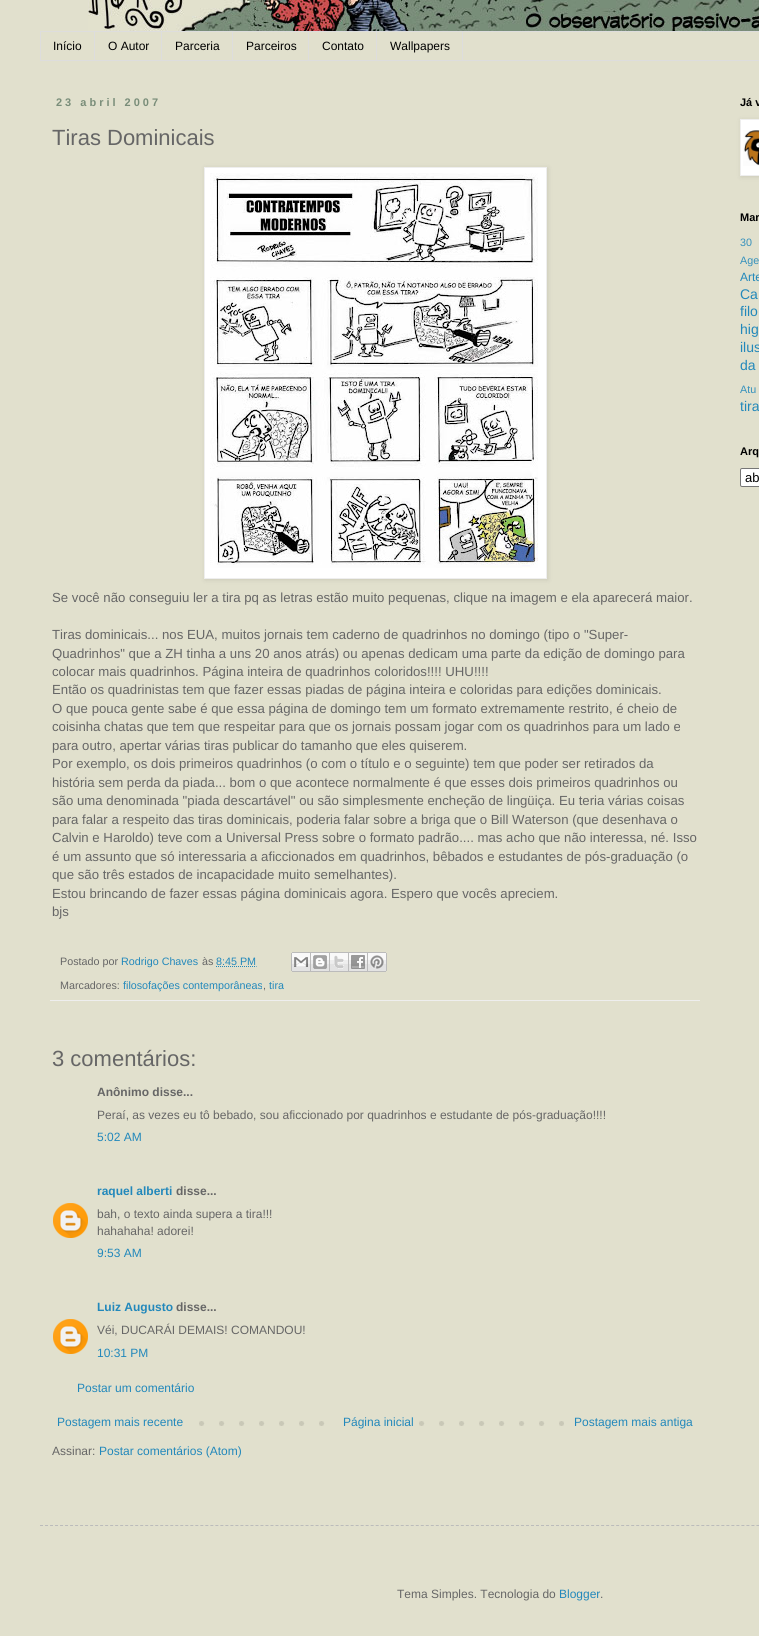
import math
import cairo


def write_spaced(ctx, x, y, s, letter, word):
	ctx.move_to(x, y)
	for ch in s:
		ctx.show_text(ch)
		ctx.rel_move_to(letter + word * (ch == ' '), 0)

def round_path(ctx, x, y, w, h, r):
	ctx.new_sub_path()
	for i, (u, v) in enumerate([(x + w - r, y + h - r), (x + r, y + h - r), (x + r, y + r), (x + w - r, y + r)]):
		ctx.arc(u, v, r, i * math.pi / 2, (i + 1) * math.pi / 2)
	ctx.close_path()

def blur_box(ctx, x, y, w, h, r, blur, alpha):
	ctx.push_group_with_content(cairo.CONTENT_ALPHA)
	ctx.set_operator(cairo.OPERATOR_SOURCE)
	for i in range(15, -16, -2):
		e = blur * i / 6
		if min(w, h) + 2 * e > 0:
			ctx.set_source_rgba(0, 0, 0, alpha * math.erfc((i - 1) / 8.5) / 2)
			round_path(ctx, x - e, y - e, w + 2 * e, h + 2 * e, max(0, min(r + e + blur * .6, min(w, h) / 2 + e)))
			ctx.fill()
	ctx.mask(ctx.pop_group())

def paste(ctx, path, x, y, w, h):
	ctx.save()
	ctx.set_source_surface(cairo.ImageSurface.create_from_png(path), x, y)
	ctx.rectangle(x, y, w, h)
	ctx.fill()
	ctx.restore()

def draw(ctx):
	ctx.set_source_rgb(0.882, 0.878, 0.804)
	ctx.paint()
	paste(ctx, 'media/1.png', 88, 0, 671, 31)
	ctx.rectangle(40.5, 31.5, 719, 29)
	ctx.set_source_rgb(0.867, 0.867, 0.867)
	ctx.set_line_width(1)
	ctx.stroke()
	ctx.rectangle(94, 32, 1, 28)
	ctx.fill()
	ctx.select_font_face('Liberation Sans')
	ctx.set_font_size(12)
	ctx.set_source_rgb(0, 0, 0)
	ctx.move_to(53, 50)
	ctx.show_text('Início')
	ctx.set_source_rgb(0.867, 0.867, 0.867)
	ctx.rectangle(161, 32, 1, 28)
	ctx.fill()
	ctx.set_source_rgb(0, 0, 0)
	ctx.move_to(108, 50)
	ctx.show_text('O Autor')
	ctx.set_source_rgb(0.867, 0.867, 0.867)
	ctx.rectangle(232, 32, 1, 28)
	ctx.fill()
	ctx.set_source_rgb(0, 0, 0)
	ctx.move_to(175, 50)
	ctx.show_text('Parceria')
	ctx.set_source_rgb(0.867, 0.867, 0.867)
	ctx.rectangle(308, 32, 1, 28)
	ctx.fill()
	ctx.set_source_rgb(0, 0, 0)
	ctx.move_to(246, 50)
	ctx.show_text('Parceiros')
	ctx.set_source_rgb(0.867, 0.867, 0.867)
	ctx.rectangle(376, 32, 1, 28)
	ctx.fill()
	ctx.set_source_rgb(0, 0, 0)
	ctx.move_to(322, 50)
	ctx.show_text('Contato')
	ctx.set_source_rgb(0.867, 0.867, 0.867)
	ctx.rectangle(462, 32, 1, 28)
	ctx.fill()
	ctx.set_source_rgb(0, 0, 0)
	ctx.move_to(390, 50)
	ctx.show_text('Wallpapers')
	ctx.select_font_face('Liberation Sans', cairo.FONT_SLANT_NORMAL, cairo.FONT_WEIGHT_BOLD)
	ctx.set_font_size(11)
	ctx.set_source_rgb(0.475, 0.553, 0.475)
	write_spaced(ctx, 56, 106, '23 abril 2007', 3, 0)
	ctx.select_font_face('Liberation Sans')
	ctx.set_font_size(22)
	ctx.set_source_rgb(0.4, 0.4, 0.4)
	ctx.move_to(52, 145)
	ctx.show_text('Tiras Dominicais')
	ctx.set_source_rgb(0, 0, 0)
	blur_box(ctx, 205, 168, 343, 412, 0, 2.5, 0.1)
	ctx.set_source_rgb(1, 1, 1)
	ctx.rectangle(204.5, 167.5, 342, 411)
	ctx.fill_preserve()
	ctx.set_source_rgb(0.933, 0.933, 0.933)
	ctx.stroke()
	paste(ctx, 'media/2.png', 210, 173, 328, 395)
	ctx.set_font_size(13.2)
	ctx.set_source_rgb(0.4, 0.4, 0.4)
	for x, y, s in [
		(52, 602, 'Se você não conseguiu ler a tira pq as letras estão muito pequenas, clique na imagem e ela aparecerá maior.'),
		(52, 639, 'Tiras dominicais... nos EUA, muitos jornais tem caderno de quadrinhos no domingo (tipo o "Super-'),
		(52, 658, 'Quadrinhos" que a ZH tinha a uns 20 anos atrás) ou apenas dedicam uma parte da edição de domingo para'),
		(52, 676, 'colocar mais quadrinhos. Página inteira de quadrinhos coloridos!!!! UHU!!!!'),
		(52, 694, 'Então os quadrinistas tem que fazer essas piadas de página inteira e coloridas para edições dominicais.'),
		(52, 713, 'O que pouca gente sabe é que essa página de domingo tem um formato extremamente restrito, é cheio de'),
		(52, 731, 'coisinha chatas que tem que respeitar para que os jornais possam jogar com os quadrinhos para um lado e'),
		(52, 750, 'para outro, apertar várias tiras publicar do tamanho que eles quiserem.'),
		(52, 768, 'Por exemplo, os dois primeiros quadrinhos (o com o título e o seguinte) tem que poder ser retirados da'),
		(52, 787, 'história sem perda da piada... bom o que acontece normalmente é que esses dois primeiros quadrinhos ou'),
		(52, 805, 'são uma denominada "piada descartável" ou são simplesmente encheção de lingüiça. Eu teria várias coisas'),
		(52, 824, 'para falar a respeito das tiras dominicais, poderia falar sobre a briga que o Bill Waterson (que desenhava o'),
		(52, 842, 'Calvin e Haroldo) teve com a Universal Press sobre o formato padrão.... mas acho que não interessa, né. Isso'),
		(52, 861, 'é um assunto que só interessaria a aficcionados em quadrinhos, bêbados e estudantes de pós-graduação (o'),
		(52, 879, 'que são três estados de incapacidade muito semelhantes).'),
		(52, 898, 'Estou brincando de fazer essas página dominicais agora. Espero que vocês apreciem.'),
		(52, 916, 'bjs'),
	]:
		ctx.move_to(x, y)
		ctx.show_text(s)
	ctx.set_source_rgb(0.933, 0.933, 0.933)
	ctx.rectangle(50, 1000, 650, 1)
	ctx.fill()
	ctx.set_font_size(10.75)
	ctx.set_source_rgb(0.4, 0.4, 0.4)
	ctx.move_to(60, 965)
	ctx.show_text('Postado por')
	ctx.set_source_rgb(0.133, 0.533, 0.733)
	ctx.move_to(121, 965)
	ctx.show_text('Rodrigo Chaves')
	ctx.set_source_rgb(0.4, 0.4, 0.4)
	ctx.move_to(202, 965)
	ctx.show_text('às')
	ctx.set_source_rgb(0.133, 0.533, 0.733)
	ctx.move_to(216, 965)
	ctx.show_text('8:45 PM')
	ctx.new_path()
	ctx.move_to(216, 966.5)
	ctx.line_to(256.5, 966.5)
	ctx.set_dash([1, 1])
	ctx.stroke()
	paste(ctx, 'media/3.png', 291, 952, 20, 20)
	paste(ctx, 'media/4.png', 311, 952, 19, 20)
	paste(ctx, 'media/5.png', 330, 952, 19, 20)
	paste(ctx, 'media/6.png', 349, 952, 19, 20)
	paste(ctx, 'media/7.png', 368, 952, 19, 20)
	ctx.set_source_rgb(0.4, 0.4, 0.4)
	ctx.move_to(60, 989)
	ctx.show_text('Marcadores:')
	ctx.set_source_rgb(0.133, 0.533, 0.733)
	ctx.move_to(123, 989)
	ctx.show_text('filosofações contemporâneas')
	ctx.set_source_rgb(0.4, 0.4, 0.4)
	ctx.move_to(263, 989)
	ctx.show_text(',')
	ctx.set_source_rgb(0.133, 0.533, 0.733)
	ctx.move_to(269, 989)
	ctx.show_text('tira')
	ctx.set_font_size(22)
	ctx.set_source_rgb(0.4, 0.4, 0.4)
	ctx.move_to(52, 1066)
	ctx.show_text('3 comentários:')
	ctx.select_font_face('Liberation Sans', cairo.FONT_SLANT_NORMAL, cairo.FONT_WEIGHT_BOLD)
	ctx.set_font_size(12)
	ctx.move_to(97, 1096)
	ctx.show_text('Anônimo disse...')
	ctx.select_font_face('Liberation Sans')
	ctx.move_to(97, 1119)
	ctx.show_text('Peraí, as vezes eu tô bebado, sou aficcionado por quadrinhos e estudante de pós-graduação!!!!')
	ctx.set_source_rgb(0.133, 0.533, 0.733)
	ctx.move_to(97, 1141)
	ctx.show_text('5:02 AM')
	ctx.select_font_face('Liberation Sans', cairo.FONT_SLANT_NORMAL, cairo.FONT_WEIGHT_BOLD)
	ctx.move_to(97, 1195)
	ctx.show_text('raquel alberti')
	ctx.set_source_rgb(0.4, 0.4, 0.4)
	ctx.move_to(176, 1195)
	ctx.show_text('disse...')
	paste(ctx, 'media/8.png', 53, 1203, 35, 35)
	ctx.select_font_face('Liberation Sans')
	ctx.move_to(97, 1218)
	ctx.show_text('bah, o texto ainda supera a tira!!!')
	ctx.move_to(97, 1235)
	ctx.show_text('hahahaha! adorei!')
	ctx.set_source_rgb(0.133, 0.533, 0.733)
	ctx.move_to(97, 1257)
	ctx.show_text('9:53 AM')
	ctx.select_font_face('Liberation Sans', cairo.FONT_SLANT_NORMAL, cairo.FONT_WEIGHT_BOLD)
	ctx.move_to(97, 1311)
	ctx.show_text('Luiz Augusto')
	ctx.set_source_rgb(0.4, 0.4, 0.4)
	ctx.move_to(176, 1311)
	ctx.show_text('disse...')
	paste(ctx, 'media/8.png', 53, 1319, 35, 35)
	ctx.select_font_face('Liberation Sans')
	ctx.move_to(97, 1334)
	ctx.show_text('Véi, DUCARÁI DEMAIS! COMANDOU!')
	ctx.set_source_rgb(0.133, 0.533, 0.733)
	ctx.move_to(97, 1357)
	ctx.show_text('10:31 PM')
	ctx.move_to(77, 1392)
	ctx.show_text('Postar um comentário')
	paste(ctx, 'media/9.png', 199, 1421, 365, 5)
	ctx.move_to(57, 1426)
	ctx.show_text('Postagem mais recente')
	ctx.set_source_rgb(0.882, 0.878, 0.804)
	ctx.rectangle(339, 1421, 66, 5)
	ctx.fill()
	ctx.set_source_rgb(0.133, 0.533, 0.733)
	ctx.move_to(343, 1426)
	ctx.show_text('Página inicial')
	ctx.move_to(574, 1426)
	ctx.show_text('Postagem mais antiga')
	ctx.set_source_rgb(0.4, 0.4, 0.4)
	ctx.move_to(52, 1455)
	ctx.show_text('Assinar:')
	ctx.set_source_rgb(0.133, 0.533, 0.733)
	ctx.move_to(99, 1455)
	ctx.show_text('Postar comentários (Atom)')
	ctx.select_font_face('Liberation Sans', cairo.FONT_SLANT_NORMAL, cairo.FONT_WEIGHT_BOLD)
	ctx.set_font_size(11)
	ctx.set_source_rgb(0, 0, 0)
	ctx.move_to(740, 106)
	ctx.show_text('Já v')
	ctx.set_source_rgb(0, 0, 0)
	blur_box(ctx, 741, 120, 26, 57, 0, 2.5, 0.1)
	ctx.set_source_rgb(1, 1, 1)
	ctx.rectangle(740.5, 119.5, 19, 56)
	ctx.fill_preserve()
	ctx.set_source_rgb(0.933, 0.933, 0.933)
	ctx.set_dash([])
	ctx.stroke()
	paste(ctx, 'media/10.png', 743, 130, 16, 36)
	ctx.set_source_rgb(0, 0, 0)
	ctx.move_to(740, 221)
	ctx.show_text('Mar')
	ctx.select_font_face('Liberation Sans')
	ctx.set_font_size(10.75)
	ctx.set_source_rgb(0.208, 0.569, 0.741)
	write_spaced(ctx, 740, 246, '30', 0, 6)
	write_spaced(ctx, 740, 264, 'Age', 0, 5)
	ctx.set_font_size(12)
	ctx.set_source_rgb(0.133, 0.533, 0.733)
	ctx.move_to(740, 281)
	ctx.show_text('Arte')
	ctx.set_font_size(14)
	ctx.move_to(740, 299)
	ctx.show_text('Ca')
	write_spaced(ctx, 740, 316, 'filo', 0, 3)
	write_spaced(ctx, 740, 334, 'hig', 0, 17)
	ctx.move_to(740, 352)
	ctx.show_text('ilus')
	write_spaced(ctx, 740, 370, 'da', 0, 2)
	ctx.set_font_size(10.75)
	ctx.set_source_rgb(0.208, 0.569, 0.741)
	ctx.move_to(740, 393)
	ctx.show_text('Atu')
	ctx.set_font_size(14)
	ctx.set_source_rgb(0.133, 0.533, 0.733)
	ctx.move_to(740, 411)
	ctx.show_text('tira')
	ctx.select_font_face('Liberation Sans', cairo.FONT_SLANT_NORMAL, cairo.FONT_WEIGHT_BOLD)
	ctx.set_font_size(11)
	ctx.set_source_rgb(0, 0, 0)
	ctx.move_to(740, 455)
	ctx.show_text('Arq')
	ctx.set_source_rgb(1, 1, 1)
	round_path(ctx, 740.5, 468.5, 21, 18, 1.5)
	ctx.fill_preserve()
	ctx.set_source_rgb(0.463, 0.463, 0.463)
	ctx.stroke()
	ctx.select_font_face('Liberation Sans')
	ctx.set_font_size(13)
	ctx.set_source_rgb(0, 0, 0)
	ctx.move_to(745, 482)
	ctx.show_text('ab')
	ctx.new_path()
	ctx.move_to(40, 1525.5)
	ctx.line_to(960, 1525.5)
	ctx.set_source_rgb(0.733, 0.733, 0.733)
	ctx.set_dash([3, 2.01])
	ctx.stroke()
	ctx.set_font_size(12)
	ctx.set_source_rgb(0.4, 0.4, 0.4)
	ctx.move_to(397, 1598)
	ctx.show_text('Tema Simples. Tecnologia do')
	ctx.set_source_rgb(0.133, 0.533, 0.733)
	ctx.move_to(559, 1598)
	ctx.show_text('Blogger')
	ctx.set_source_rgb(0.4, 0.4, 0.4)
	ctx.move_to(600, 1598)
	ctx.show_text('.')


surface = cairo.ImageSurface(cairo.FORMAT_RGB24, 759, 1636)
ctx = cairo.Context(surface)
options = cairo.FontOptions()
options.set_hint_metrics(cairo.HINT_METRICS_OFF)
options.set_hint_style(cairo.HINT_STYLE_NONE)
ctx.set_font_options(options)
ctx.set_miter_limit(4)
draw(ctx)
surface.write_to_png('image.png')
